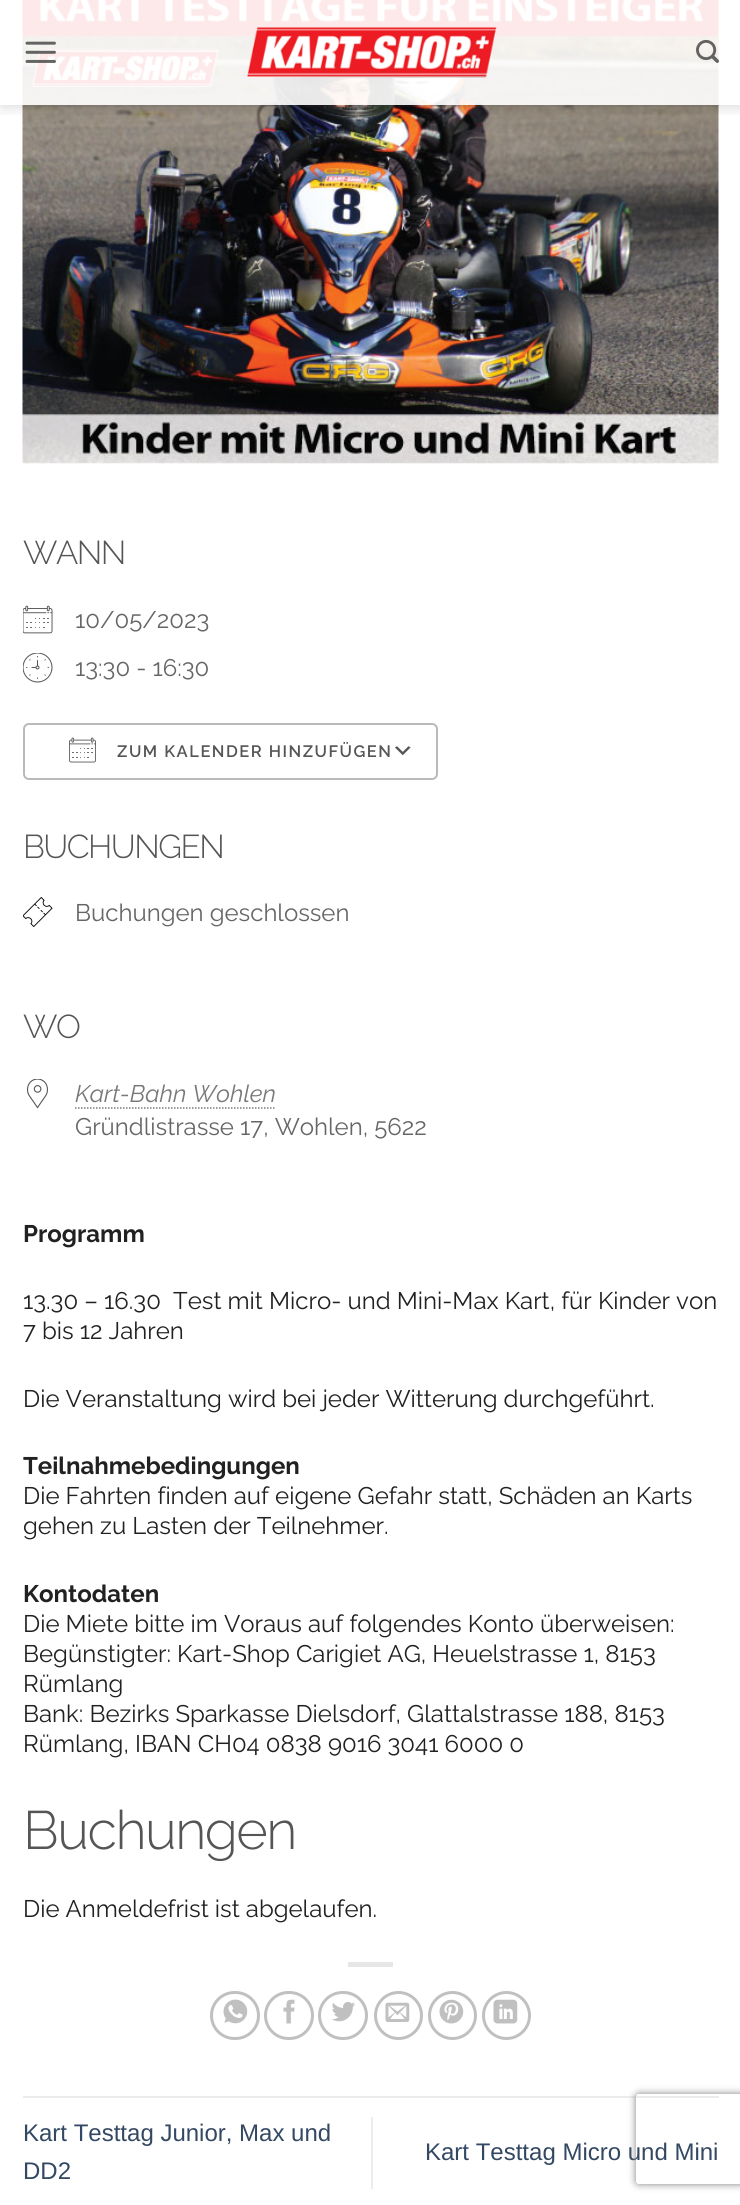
import math
import cairo


def write_spaced(ctx, x, y, s, letter, word):
	ctx.move_to(x, y)
	for ch in s:
		ctx.show_text(ch)
		ctx.rel_move_to(letter + word * (ch == ' '), 0)

def round_path(ctx, x, y, w, h, r):
	ctx.new_sub_path()
	for i, (u, v) in enumerate([(x + w - r, y + h - r), (x + r, y + h - r), (x + r, y + r), (x + w - r, y + r)]):
		ctx.arc(u, v, r, i * math.pi / 2, (i + 1) * math.pi / 2)
	ctx.close_path()

def blur_box(ctx, x, y, w, h, r, blur, alpha):
	ctx.push_group_with_content(cairo.CONTENT_ALPHA)
	ctx.set_operator(cairo.OPERATOR_SOURCE)
	for i in range(15, -16, -2):
		e = blur * i / 6
		if min(w, h) + 2 * e > 0:
			ctx.set_source_rgba(0, 0, 0, alpha * math.erfc((i - 1) / 8.5) / 2)
			round_path(ctx, x - e, y - e, w + 2 * e, h + 2 * e, max(0, min(r + e + blur * .6, min(w, h) / 2 + e)))
			ctx.fill()
	ctx.mask(ctx.pop_group())

def paste(ctx, path, x, y, w, h):
	ctx.save()
	ctx.set_source_surface(cairo.ImageSurface.create_from_png(path), x, y)
	ctx.rectangle(x, y, w, h)
	ctx.fill()
	ctx.restore()

def draw(ctx):
	ctx.set_source_rgb(1, 1, 1)
	ctx.paint()
	paste(ctx, 'media/4.png', 22, 0, 697, 464)
	ctx.save()
	ctx.rectangle(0, 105, 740, 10)
	ctx.clip()
	ctx.set_source_rgb(0, 0, 0)
	blur_box(ctx, 2, 2, 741, 105, 0, 7.5, 0.15)
	ctx.restore()
	ctx.set_source_rgba(1, 1, 1, 0.9)
	ctx.rectangle(22, 0, 697, 105)
	ctx.fill()
	paste(ctx, 'media/1.png', 25, 41, 31, 22)
	paste(ctx, 'media/2.png', 246, 27, 251, 51)
	paste(ctx, 'media/3.png', 696, 39, 23, 24)
	ctx.set_source_rgba(0.29, 0.29, 0.29, 0.1)
	ctx.rectangle(23, 105, 696, 2)
	ctx.fill()
	ctx.select_font_face('Raleway Light')
	ctx.set_font_size(33)
	ctx.set_source_rgb(0.333, 0.333, 0.333)
	write_spaced(ctx, 23, 564, 'WANN', -1.5, 0)
	paste(ctx, 'media/5.png', 23, 605, 30, 29)
	ctx.select_font_face('Raleway')
	ctx.set_font_size(24)
	ctx.set_source_rgb(0.4, 0.4, 0.4)
	ctx.move_to(75, 628)
	ctx.show_text('10/05/2023')
	paste(ctx, 'media/6.png', 23, 653, 30, 30)
	ctx.move_to(75, 676)
	ctx.show_text('13:30 - 16:30')
	paste(ctx, 'media/7.png', 395, 746, 16, 10)
	round_path(ctx, 24, 724, 413, 55, 5)
	ctx.set_source_rgb(0.729, 0.729, 0.729)
	ctx.stroke()
	paste(ctx, 'media/8.png', 69, 737, 27, 26)
	ctx.select_font_face('Raleway SemiBold')
	ctx.set_font_size(16.5)
	ctx.set_source_rgb(0.333, 0.333, 0.333)
	write_spaced(ctx, 117, 757, 'ZUM KALENDER HINZUFÜGEN', 1.5, 0)
	ctx.select_font_face('Raleway Light')
	ctx.set_font_size(33)
	write_spaced(ctx, 23, 858, 'BUCHUNGEN', -1.5, 0)
	paste(ctx, 'media/9.png', 23, 897, 30, 30)
	ctx.select_font_face('Raleway')
	ctx.set_font_size(24)
	ctx.set_source_rgb(0.4, 0.4, 0.4)
	ctx.move_to(75, 921)
	ctx.show_text('Buchungen geschlossen')
	ctx.select_font_face('Raleway Light')
	ctx.set_font_size(33)
	ctx.set_source_rgb(0.333, 0.333, 0.333)
	write_spaced(ctx, 23, 1038, 'WO', -1.5, 0)
	paste(ctx, 'media/10.png', 27, 1079, 21, 30)
	ctx.select_font_face('Raleway', cairo.FONT_SLANT_ITALIC)
	ctx.set_font_size(24)
	ctx.set_source_rgb(0.471, 0.471, 0.471)
	ctx.move_to(75, 1102)
	ctx.show_text('Kart-Bahn Wohlen')
	ctx.new_path()
	ctx.move_to(75, 1108)
	ctx.line_to(276, 1108)
	ctx.set_line_width(1.5)
	ctx.set_dash([1.5, 1.5])
	ctx.stroke()
	ctx.select_font_face('Raleway')
	ctx.set_source_rgb(0.4, 0.4, 0.4)
	ctx.move_to(75, 1135)
	ctx.show_text('Gründlistrasse 17, Wohlen, 5622')
	ctx.select_font_face('Raleway', cairo.FONT_SLANT_NORMAL, cairo.FONT_WEIGHT_BOLD)
	ctx.set_source_rgb(0.129, 0.129, 0.129)
	ctx.move_to(23, 1242)
	ctx.show_text('Programm')
	ctx.select_font_face('Raleway')
	for x, y, s in [
		(23, 1309, '13.30 – 16.30  Test mit Micro- und Mini-Max Kart, für Kinder von'),
		(23, 1339, '7 bis 12 Jahren'),
		(23, 1407, 'Die Veranstaltung wird bei jeder Witterung durchgeführt.'),
	]:
		ctx.move_to(x, y)
		ctx.show_text(s)
	ctx.select_font_face('Raleway', cairo.FONT_SLANT_NORMAL, cairo.FONT_WEIGHT_BOLD)
	ctx.move_to(23, 1474)
	ctx.show_text('Teilnahmebedingungen')
	ctx.select_font_face('Raleway')
	ctx.move_to(23, 1504)
	ctx.show_text('Die Fahrten finden auf eigene Gefahr statt, Schäden an Karts')
	ctx.move_to(23, 1534)
	ctx.show_text('gehen zu Lasten der Teilnehmer.')
	ctx.select_font_face('Raleway', cairo.FONT_SLANT_NORMAL, cairo.FONT_WEIGHT_BOLD)
	ctx.move_to(23, 1602)
	ctx.show_text('Kontodaten')
	ctx.select_font_face('Raleway')
	for x, y, s in [
		(23, 1632, 'Die Miete bitte im Voraus auf folgendes Konto überweisen:'),
		(23, 1662, 'Begünstigter: Kart-Shop Carigiet AG, Heuelstrasse 1, 8153'),
		(23, 1692, 'Rümlang'),
		(23, 1722, 'Bank: Bezirks Sparkasse Dielsdorf, Glattalstrasse 188, 8153'),
		(23, 1752, 'Rümlang, IBAN CH04 0838 9016 3041 6000 0'),
	]:
		ctx.move_to(x, y)
		ctx.show_text(s)
	ctx.select_font_face('Raleway Light')
	ctx.set_font_size(54)
	ctx.set_source_rgb(0.333, 0.333, 0.333)
	write_spaced(ctx, 23, 1849, 'Buchungen', -1.5, 0)
	ctx.select_font_face('Raleway')
	ctx.set_font_size(24)
	ctx.set_source_rgb(0.129, 0.129, 0.129)
	ctx.move_to(23, 1917)
	ctx.show_text('Die Anmeldefrist ist abgelaufen.')
	ctx.set_source_rgb(0.902, 0.902, 0.902)
	ctx.rectangle(348, 1962, 45, 5)
	ctx.fill()
	round_path(ctx, 211.5, 1992.5, 47, 46, 23)
	ctx.set_source_rgb(0.753, 0.753, 0.753)
	ctx.set_line_width(3)
	ctx.set_dash([])
	ctx.stroke()
	paste(ctx, 'media/11.png', 223, 1999, 25, 25)
	round_path(ctx, 265.5, 1992.5, 47, 46, 23)
	ctx.stroke()
	paste(ctx, 'media/12.png', 283, 1999, 12, 25)
	round_path(ctx, 319.5, 1992.5, 47, 46, 23)
	ctx.stroke()
	paste(ctx, 'media/13.png', 332, 2002, 23, 20)
	ctx.arc(398.5, 2015.5, 23, 0, 2 * math.pi)
	ctx.stroke()
	paste(ctx, 'media/14.png', 385, 2002, 25, 20)
	ctx.arc(452.5, 2015.5, 23, 0, 2 * math.pi)
	ctx.stroke()
	paste(ctx, 'media/15.png', 439, 1999, 25, 25)
	ctx.arc(506.5, 2015.5, 23, 0, 2 * math.pi)
	ctx.stroke()
	paste(ctx, 'media/16.png', 493, 1999, 25, 25)
	ctx.set_source_rgb(0.925, 0.925, 0.925)
	ctx.rectangle(23, 2096, 696, 2)
	ctx.fill()
	ctx.select_font_face('Liberation Sans')
	ctx.set_source_rgb(0.2, 0.282, 0.384)
	ctx.move_to(23, 2141)
	ctx.show_text('Kart Testtag Junior, Max und')
	ctx.move_to(23, 2179)
	ctx.show_text('DD2')
	ctx.set_source_rgb(0.925, 0.925, 0.925)
	ctx.rectangle(371, 2117, 2, 72)
	ctx.fill()
	ctx.set_source_rgb(0.2, 0.282, 0.384)
	ctx.move_to(425, 2160)
	ctx.show_text('Kart Testtag Micro und Mini')
	ctx.save()
	ctx.set_fill_rule(cairo.FILL_RULE_EVEN_ODD)
	ctx.new_path()
	ctx.move_to(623, 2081)
	ctx.line_to(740, 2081)
	ctx.line_to(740, 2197)
	ctx.line_to(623, 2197)
	ctx.close_path()
	ctx.move_to(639, 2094)
	ctx.line_to(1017, 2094)
	ctx.curve_to(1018.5, 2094, 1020, 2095.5, 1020, 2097)
	ctx.line_to(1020, 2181)
	ctx.curve_to(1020, 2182.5, 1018.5, 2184, 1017, 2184)
	ctx.line_to(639, 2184)
	ctx.curve_to(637.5, 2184, 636, 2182.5, 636, 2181)
	ctx.line_to(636, 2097)
	ctx.curve_to(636, 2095.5, 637.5, 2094, 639, 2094)
	ctx.close_path()
	ctx.clip()
	ctx.set_source_rgb(0.502, 0.502, 0.502)
	blur_box(ctx, 636, 2094, 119, 90, 3, 4, 1)
	ctx.restore()


surface = cairo.ImageSurface(cairo.FORMAT_RGB24, 740, 2205)
ctx = cairo.Context(surface)
options = cairo.FontOptions()
options.set_hint_metrics(cairo.HINT_METRICS_OFF)
options.set_hint_style(cairo.HINT_STYLE_NONE)
ctx.set_font_options(options)
ctx.set_miter_limit(4)
draw(ctx)
surface.write_to_png('image.png')
